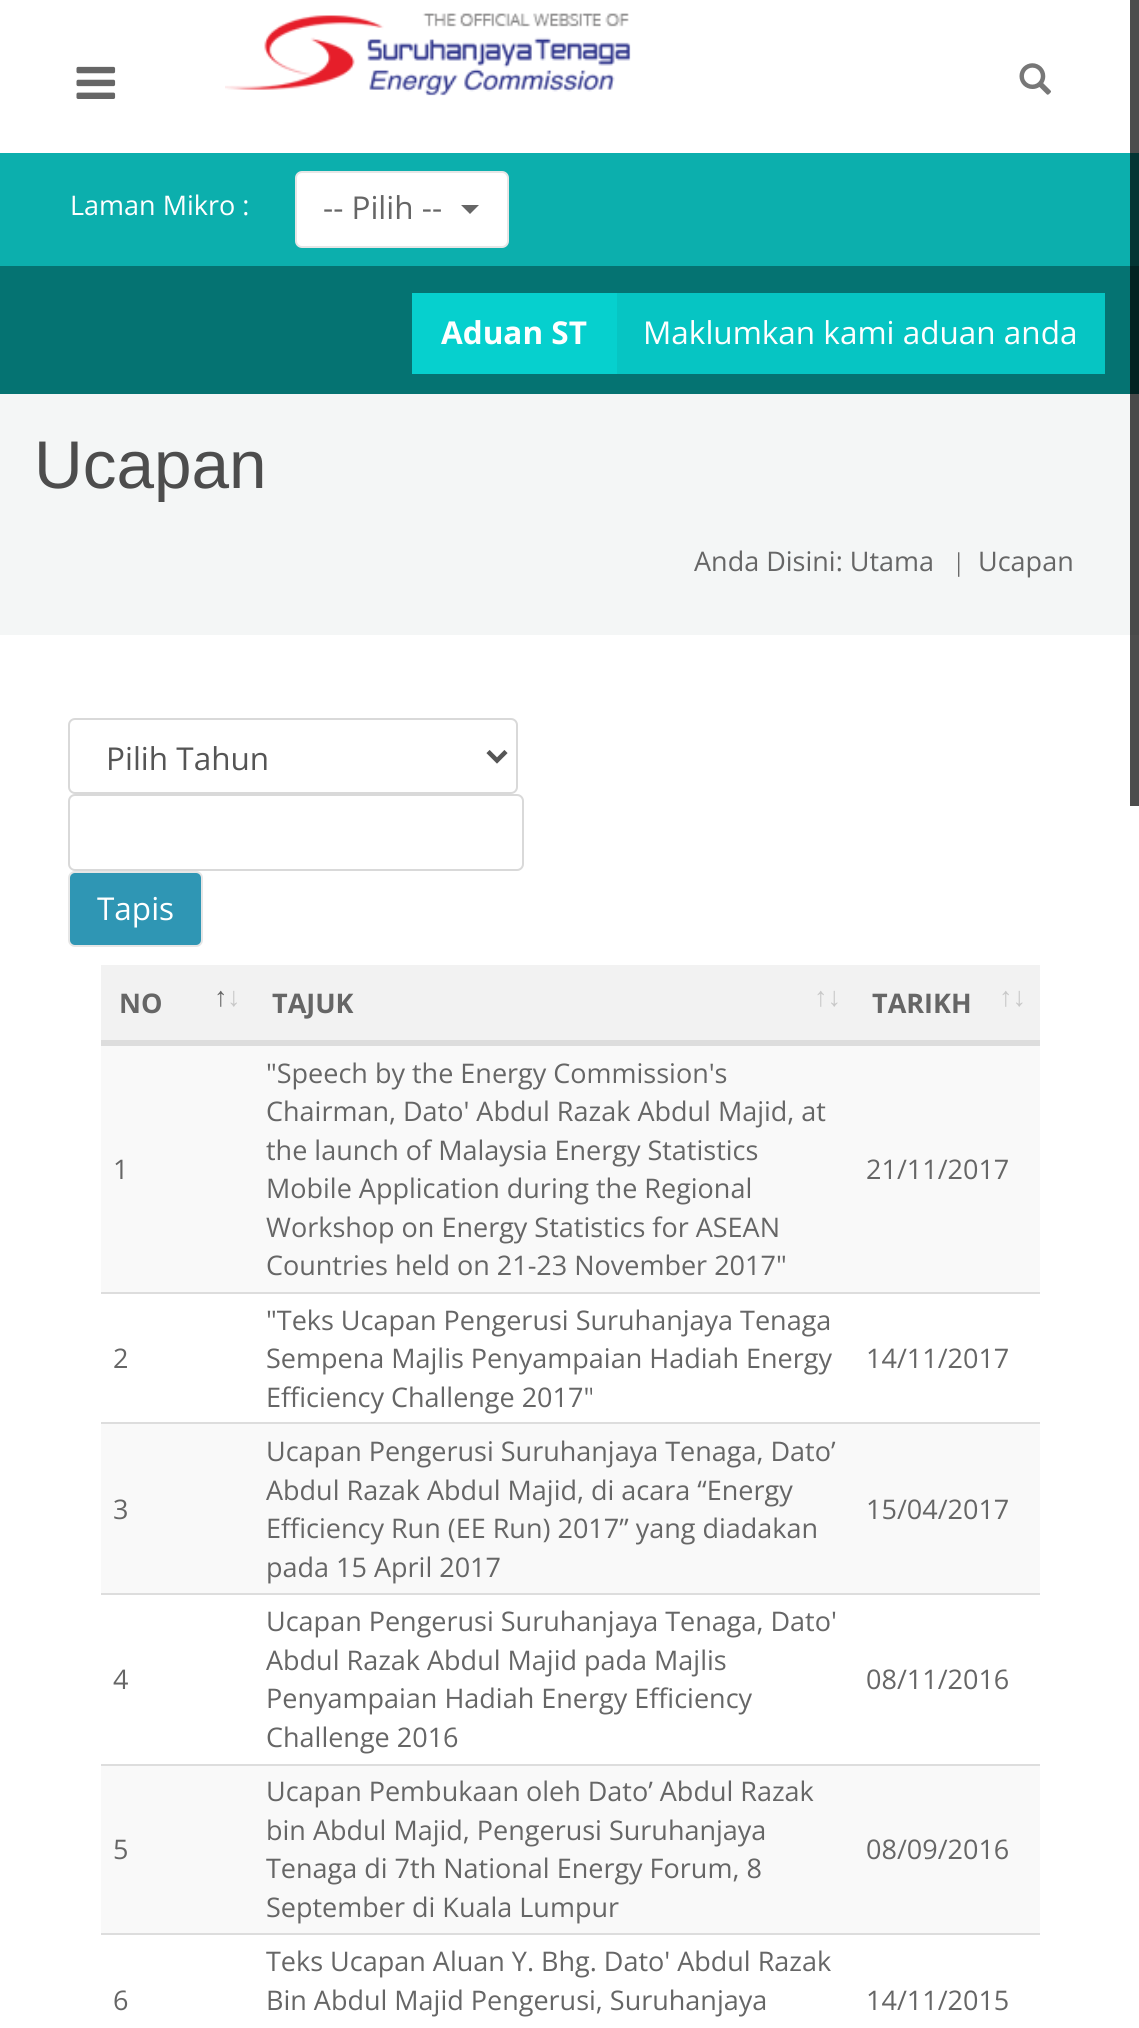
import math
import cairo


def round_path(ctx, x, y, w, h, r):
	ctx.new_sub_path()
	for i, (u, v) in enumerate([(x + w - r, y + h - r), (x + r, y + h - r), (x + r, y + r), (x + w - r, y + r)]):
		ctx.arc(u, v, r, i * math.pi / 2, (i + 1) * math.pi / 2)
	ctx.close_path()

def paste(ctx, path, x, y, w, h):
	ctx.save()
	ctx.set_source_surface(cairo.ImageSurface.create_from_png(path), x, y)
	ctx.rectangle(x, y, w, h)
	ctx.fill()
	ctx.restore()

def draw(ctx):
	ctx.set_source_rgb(1, 1, 1)
	ctx.paint()
	ctx.set_source_rgb(0.302, 0.302, 0.302)
	ctx.rectangle(1130, 0, 9, 153)
	ctx.fill()
	paste(ctx, 'media/1.png', 76, 66, 40, 33)
	paste(ctx, 'media/2.png', 225, 13, 406, 83)
	paste(ctx, 'media/3.png', 1019, 63, 32, 32)
	ctx.set_source_rgb(0.047, 0.686, 0.678)
	ctx.rectangle(0, 153, 1130, 113)
	ctx.fill()
	ctx.set_source_rgb(0.016, 0.208, 0.204)
	ctx.rectangle(1130, 153, 9, 113)
	ctx.fill()
	ctx.select_font_face('Open Sans')
	ctx.set_font_size(27)
	ctx.set_source_rgb(1, 1, 1)
	ctx.move_to(70, 215)
	ctx.show_text('Laman Mikro :')
	round_path(ctx, 296, 172, 212, 75, 6)
	ctx.fill_preserve()
	ctx.set_source_rgb(0.902, 0.902, 0.902)
	ctx.stroke()
	ctx.set_font_size(31.5)
	ctx.set_source_rgb(0.4, 0.4, 0.4)
	ctx.move_to(323, 219)
	ctx.show_text('-- Pilih --')
	ctx.new_path()
	ctx.move_to(461, 205)
	ctx.line_to(479, 205)
	ctx.line_to(470, 214)
	ctx.close_path()
	ctx.fill()
	ctx.set_source_rgb(0.02, 0.451, 0.447)
	ctx.rectangle(0, 266, 1130, 128)
	ctx.fill()
	ctx.set_source_rgb(0.008, 0.137, 0.133)
	ctx.rectangle(1130, 266, 9, 128)
	ctx.fill()
	ctx.set_source_rgb(0.027, 0.816, 0.808)
	ctx.rectangle(412, 293, 205, 81)
	ctx.fill()
	ctx.select_font_face('Open Sans', cairo.FONT_SLANT_NORMAL, cairo.FONT_WEIGHT_BOLD)
	ctx.set_source_rgb(1, 1, 1)
	ctx.move_to(441, 344)
	ctx.show_text('Aduan ST')
	ctx.set_source_rgb(0.024, 0.773, 0.765)
	ctx.rectangle(617, 293, 488, 81)
	ctx.fill()
	ctx.select_font_face('Open Sans')
	ctx.set_source_rgb(1, 1, 1)
	ctx.move_to(643, 344)
	ctx.show_text('Maklumkan kami aduan anda')
	ctx.set_source_rgb(0.957, 0.961, 0.961)
	ctx.rectangle(0, 394, 1130, 241)
	ctx.fill()
	ctx.set_source_rgb(0.286, 0.29, 0.29)
	ctx.rectangle(1130, 394, 9, 241)
	ctx.fill()
	ctx.select_font_face('Liberation Sans')
	ctx.set_font_size(67.5)
	ctx.set_source_rgb(0.302, 0.302, 0.302)
	ctx.move_to(34, 488)
	ctx.show_text('Ucapan')
	ctx.select_font_face('Open Sans')
	ctx.set_font_size(27)
	ctx.set_source_rgb(0.4, 0.4, 0.4)
	ctx.move_to(694, 571)
	ctx.show_text('Anda Disini: Utama')
	ctx.select_font_face('Liberation Serif')
	ctx.move_to(956, 571)
	ctx.show_text('|')
	ctx.select_font_face('Open Sans')
	ctx.move_to(978, 571)
	ctx.show_text('Ucapan')
	ctx.set_source_rgb(0.302, 0.302, 0.302)
	ctx.rectangle(1130, 635, 9, 171)
	ctx.fill()
	round_path(ctx, 69, 719, 448, 74, 6)
	ctx.set_source_rgb(0.851, 0.851, 0.851)
	ctx.stroke()
	ctx.new_path()
	ctx.move_to(488, 751.5)
	ctx.line_to(497, 760.5)
	ctx.line_to(506, 751.5)
	ctx.set_source_rgb(0.333, 0.333, 0.333)
	ctx.set_line_width(4.5)
	ctx.stroke()
	ctx.set_font_size(31.5)
	ctx.move_to(106, 770)
	ctx.show_text('Pilih Tahun')
	round_path(ctx, 69, 795, 454, 75, 6)
	ctx.set_source_rgb(0.851, 0.851, 0.851)
	ctx.set_line_width(2)
	ctx.stroke()
	ctx.set_source_rgb(0.184, 0.588, 0.706)
	round_path(ctx, 69, 872, 133, 74, 6)
	ctx.fill_preserve()
	ctx.set_source_rgb(0.902, 0.902, 0.902)
	ctx.stroke()
	ctx.set_source_rgb(1, 1, 1)
	ctx.move_to(97, 920)
	ctx.show_text('Tapis')
	ctx.set_source_rgb(0.949, 0.949, 0.949)
	ctx.rectangle(101, 965, 939, 75)
	ctx.fill()
	ctx.set_source_rgb(0.867, 0.867, 0.867)
	ctx.rectangle(101, 1040, 939, 5)
	ctx.fill()
	ctx.select_font_face('Open Sans', cairo.FONT_SLANT_NORMAL, cairo.FONT_WEIGHT_BOLD)
	ctx.set_font_size(27)
	ctx.set_source_rgb(0.4, 0.4, 0.4)
	ctx.move_to(119, 1013)
	ctx.show_text('NO')
	ctx.select_font_face('Liberation Sans', cairo.FONT_SLANT_NORMAL, cairo.FONT_WEIGHT_BOLD)
	ctx.move_to(214, 1006)
	ctx.show_text('↑')
	ctx.set_source_rgb(0.784, 0.784, 0.784)
	ctx.move_to(227, 1006)
	ctx.show_text('↓')
	ctx.select_font_face('Open Sans', cairo.FONT_SLANT_NORMAL, cairo.FONT_WEIGHT_BOLD)
	ctx.set_source_rgb(0.4, 0.4, 0.4)
	ctx.move_to(272, 1013)
	ctx.show_text('TAJUK')
	ctx.select_font_face('Liberation Sans', cairo.FONT_SLANT_NORMAL, cairo.FONT_WEIGHT_BOLD)
	ctx.set_source_rgb(0.784, 0.784, 0.784)
	ctx.move_to(814, 1006)
	ctx.show_text('↑↓')
	ctx.select_font_face('Open Sans', cairo.FONT_SLANT_NORMAL, cairo.FONT_WEIGHT_BOLD)
	ctx.set_source_rgb(0.4, 0.4, 0.4)
	ctx.move_to(872, 1013)
	ctx.show_text('TARIKH')
	ctx.select_font_face('Liberation Sans', cairo.FONT_SLANT_NORMAL, cairo.FONT_WEIGHT_BOLD)
	ctx.set_source_rgb(0.784, 0.784, 0.784)
	ctx.move_to(999, 1006)
	ctx.show_text('↑↓')
	ctx.set_source_rgb(0.976, 0.976, 0.976)
	ctx.rectangle(101, 1046, 939, 246)
	ctx.fill()
	ctx.set_source_rgb(0.867, 0.867, 0.867)
	ctx.rectangle(101, 1045, 939, 1)
	ctx.fill()
	ctx.select_font_face('Open Sans')
	ctx.set_source_rgb(0.4, 0.4, 0.4)
	for x, y, s in [
		(113, 1179, '1'),
		(266, 1083, '"Speech by the Energy Commission\'s'),
		(266, 1121, 'Chairman, Dato\' Abdul Razak Abdul Majid, at'),
		(266, 1160, 'the launch of Malaysia Energy Statistics'),
		(266, 1198, 'Mobile Application during the Regional'),
		(266, 1237, 'Workshop on Energy Statistics for ASEAN'),
		(266, 1275, 'Countries held on 21-23 November 2017"'),
		(866, 1179, '21/11/2017'),
	]:
		ctx.move_to(x, y)
		ctx.show_text(s)
	ctx.set_source_rgb(0.867, 0.867, 0.867)
	ctx.rectangle(101, 1292, 939, 2)
	ctx.fill()
	ctx.set_source_rgb(0.4, 0.4, 0.4)
	for x, y, s in [
		(113, 1368, '2'),
		(266, 1330, '"Teks Ucapan Pengerusi Suruhanjaya Tenaga'),
		(266, 1368, 'Sempena Majlis Penyampaian Hadiah Energy'),
		(266, 1407, 'Efficiency Challenge 2017"'),
		(866, 1368, '14/11/2017'),
	]:
		ctx.move_to(x, y)
		ctx.show_text(s)
	ctx.set_source_rgb(0.976, 0.976, 0.976)
	ctx.rectangle(101, 1424, 939, 169)
	ctx.fill()
	ctx.set_source_rgb(0.867, 0.867, 0.867)
	ctx.rectangle(101, 1422, 939, 2)
	ctx.fill()
	ctx.set_source_rgb(0.4, 0.4, 0.4)
	for x, y, s in [
		(113, 1519, '3'),
		(266, 1461, 'Ucapan Pengerusi Suruhanjaya Tenaga, Dato’'),
		(266, 1500, 'Abdul Razak Abdul Majid, di acara “Energy'),
		(266, 1538, 'Efficiency Run (EE Run) 2017” yang diadakan'),
		(266, 1577, 'pada 15 April 2017'),
		(866, 1519, '15/04/2017'),
	]:
		ctx.move_to(x, y)
		ctx.show_text(s)
	ctx.set_source_rgb(0.867, 0.867, 0.867)
	ctx.rectangle(101, 1593, 939, 2)
	ctx.fill()
	ctx.set_source_rgb(0.4, 0.4, 0.4)
	for x, y, s in [
		(113, 1689, '4'),
		(266, 1631, 'Ucapan Pengerusi Suruhanjaya Tenaga, Dato\''),
		(266, 1670, 'Abdul Razak Abdul Majid pada Majlis'),
		(266, 1708, 'Penyampaian Hadiah Energy Efficiency'),
		(266, 1747, 'Challenge 2016'),
		(866, 1689, '08/11/2016'),
	]:
		ctx.move_to(x, y)
		ctx.show_text(s)
	ctx.set_source_rgb(0.976, 0.976, 0.976)
	ctx.rectangle(101, 1766, 939, 167)
	ctx.fill()
	ctx.set_source_rgb(0.867, 0.867, 0.867)
	ctx.rectangle(101, 1764, 939, 2)
	ctx.fill()
	ctx.set_source_rgb(0.4, 0.4, 0.4)
	for x, y, s in [
		(113, 1859, '5'),
		(266, 1801, 'Ucapan Pembukaan oleh Dato’ Abdul Razak'),
		(266, 1840, 'bin Abdul Majid, Pengerusi Suruhanjaya'),
		(266, 1878, 'Tenaga di 7th National Energy Forum, 8'),
		(266, 1917, 'September di Kuala Lumpur'),
		(866, 1859, '08/09/2016'),
	]:
		ctx.move_to(x, y)
		ctx.show_text(s)
	ctx.set_source_rgb(0.867, 0.867, 0.867)
	ctx.rectangle(101, 1933, 939, 2)
	ctx.fill()
	ctx.set_source_rgb(0.4, 0.4, 0.4)
	for x, y, s in [
		(113, 2010, '6'),
		(266, 1971, 'Teks Ucapan Aluan Y. Bhg. Dato\' Abdul Razak'),
		(266, 2010, 'Bin Abdul Majid Pengerusi, Suruhanjaya'),
		(866, 2010, '14/11/2015'),
	]:
		ctx.move_to(x, y)
		ctx.show_text(s)


surface = cairo.ImageSurface(cairo.FORMAT_RGB24, 1139, 2028)
ctx = cairo.Context(surface)
options = cairo.FontOptions()
options.set_hint_metrics(cairo.HINT_METRICS_OFF)
options.set_hint_style(cairo.HINT_STYLE_NONE)
ctx.set_font_options(options)
ctx.set_miter_limit(4)
draw(ctx)
surface.write_to_png('image.png')
